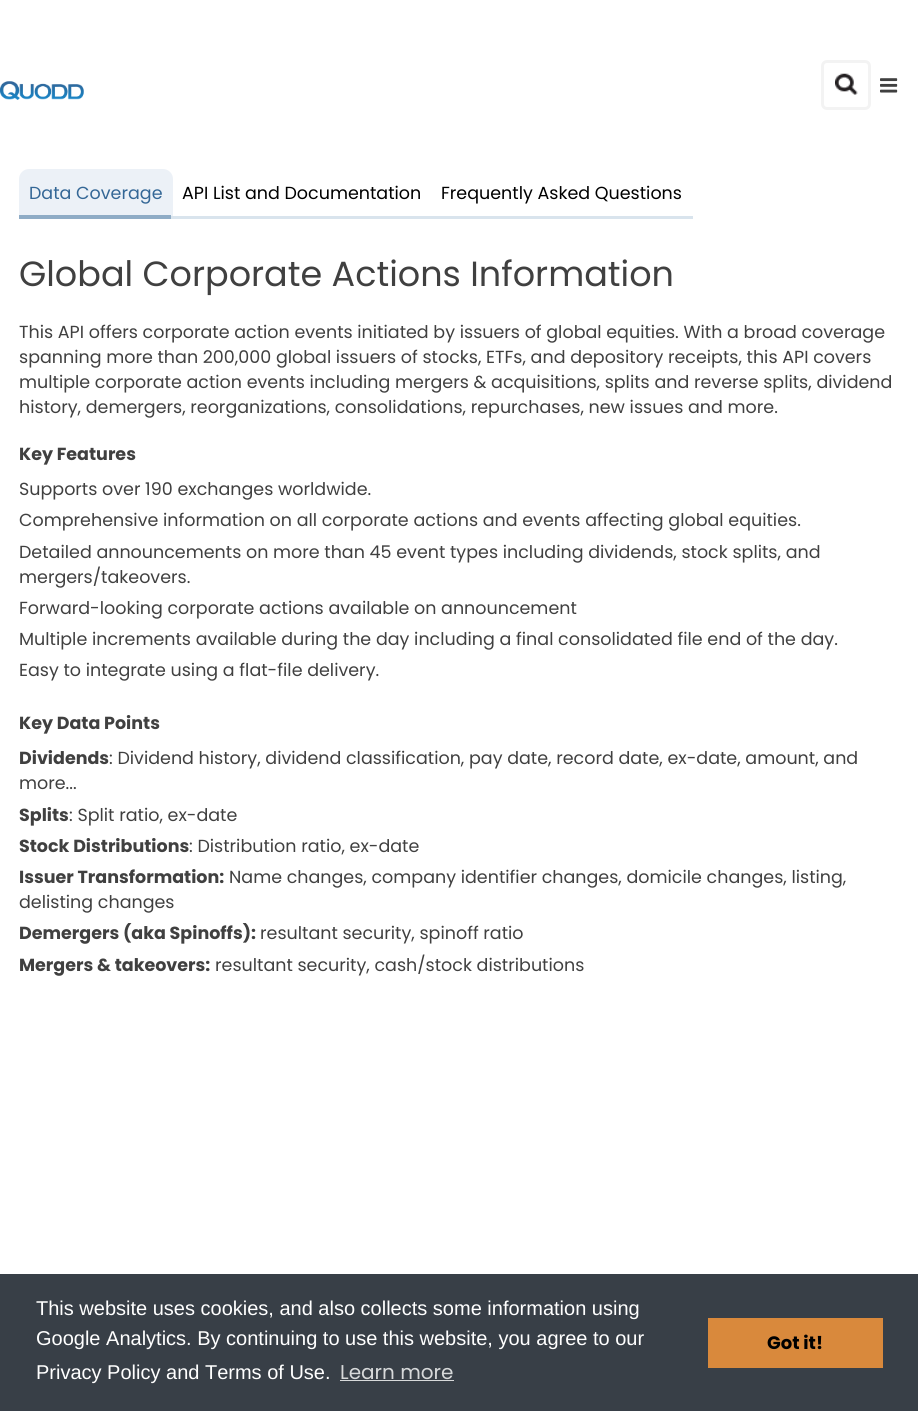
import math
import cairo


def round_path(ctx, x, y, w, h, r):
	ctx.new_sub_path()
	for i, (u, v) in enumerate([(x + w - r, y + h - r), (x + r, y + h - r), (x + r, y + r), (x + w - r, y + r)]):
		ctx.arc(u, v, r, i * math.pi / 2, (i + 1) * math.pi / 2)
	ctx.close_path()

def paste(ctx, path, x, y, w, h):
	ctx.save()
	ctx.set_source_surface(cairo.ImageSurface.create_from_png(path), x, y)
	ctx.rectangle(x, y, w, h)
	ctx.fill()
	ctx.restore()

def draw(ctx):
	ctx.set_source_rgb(1, 1, 1)
	ctx.paint()
	paste(ctx, 'media/1.png', 0, 81, 84, 19)
	round_path(ctx, 822.5, 61.5, 47, 47, 4.5)
	ctx.set_source_rgb(0.953, 0.953, 0.953)
	ctx.set_line_width(3)
	ctx.stroke()
	paste(ctx, 'media/2.png', 835, 73, 23, 22)
	paste(ctx, 'media/3.png', 880, 78, 18, 15)
	ctx.set_source_rgb(0.922, 0.945, 0.965)
	ctx.new_path()
	ctx.move_to(29, 169)
	ctx.line_to(163, 169)
	ctx.curve_to(168.5, 169, 173, 173.5, 173, 179)
	ctx.line_to(173, 216)
	ctx.line_to(19, 216)
	ctx.line_to(19, 179)
	ctx.curve_to(19, 173.5, 23.5, 169, 29, 169)
	ctx.close_path()
	ctx.fill()
	ctx.set_source_rgb(0.851, 0.894, 0.929)
	ctx.rectangle(171, 216, 522, 3)
	ctx.fill()
	ctx.select_font_face('Poppins')
	ctx.set_font_size(17.5)
	ctx.set_source_rgb(0.204, 0.404, 0.588)
	ctx.move_to(29, 199)
	ctx.show_text('Data Coverage')
	ctx.set_source_rgb(0, 0, 0)
	ctx.move_to(182, 199)
	ctx.show_text('API List and Documentation')
	ctx.move_to(441, 199)
	ctx.show_text('Frequently Asked Questions')
	ctx.set_source_rgb(0.561, 0.675, 0.776)
	ctx.rectangle(19, 215, 152, 4)
	ctx.fill()
	ctx.set_font_size(35)
	ctx.set_source_rgb(0.251, 0.251, 0.251)
	ctx.move_to(19, 286)
	ctx.show_text('Global Corporate Actions Information')
	ctx.set_font_size(17.5)
	for x, y, s in [
		(19, 338, 'This API offers corporate action events initiated by issuers of global equities. With a broad coverage'),
		(19, 363, 'spanning more than 200,000 global issuers of stocks, ETFs, and depository receipts, this API covers'),
		(19, 388, 'multiple corporate action events including mergers & acquisitions, splits and reverse splits, dividend'),
		(19, 413, 'history, demergers, reorganizations, consolidations, repurchases, new issues and more.'),
	]:
		ctx.move_to(x, y)
		ctx.show_text(s)
	ctx.select_font_face('Poppins', cairo.FONT_SLANT_NORMAL, cairo.FONT_WEIGHT_BOLD)
	ctx.move_to(19, 460)
	ctx.show_text('Key Features')
	ctx.select_font_face('Poppins')
	for x, y, s in [
		(19, 495, 'Supports over 190 exchanges worldwide.'),
		(19, 526, 'Comprehensive information on all corporate actions and events affecting global equities.'),
		(19, 558, 'Detailed announcements on more than 45 event types including dividends, stock splits, and'),
		(19, 583, 'mergers/takeovers.'),
		(19, 614, 'Forward-looking corporate actions available on announcement'),
		(19, 645, 'Multiple increments available during the day including a final consolidated file end of the day.'),
		(19, 676, 'Easy to integrate using a flat-file delivery.'),
	]:
		ctx.move_to(x, y)
		ctx.show_text(s)
	ctx.select_font_face('Poppins', cairo.FONT_SLANT_NORMAL, cairo.FONT_WEIGHT_BOLD)
	ctx.move_to(19, 729)
	ctx.show_text('Key Data Points')
	ctx.move_to(19, 764)
	ctx.show_text('Dividends')
	ctx.select_font_face('Poppins')
	ctx.move_to(109, 764)
	ctx.show_text(': Dividend history, dividend classification, pay date, record date, ex-date, amount, and')
	ctx.move_to(19, 789)
	ctx.show_text('more...')
	ctx.select_font_face('Poppins', cairo.FONT_SLANT_NORMAL, cairo.FONT_WEIGHT_BOLD)
	ctx.move_to(19, 821)
	ctx.show_text('Splits')
	ctx.select_font_face('Poppins')
	ctx.move_to(69, 821)
	ctx.show_text(': Split ratio, ex-date')
	ctx.select_font_face('Poppins', cairo.FONT_SLANT_NORMAL, cairo.FONT_WEIGHT_BOLD)
	ctx.move_to(19, 852)
	ctx.show_text('Stock Distributions')
	ctx.select_font_face('Poppins')
	ctx.move_to(189, 852)
	ctx.show_text(': Distribution ratio, ex-date')
	ctx.select_font_face('Poppins', cairo.FONT_SLANT_NORMAL, cairo.FONT_WEIGHT_BOLD)
	ctx.move_to(19, 883)
	ctx.show_text('Issuer Transformation:')
	ctx.select_font_face('Poppins')
	ctx.move_to(229, 883)
	ctx.show_text('Name changes, company identifier changes, domicile changes, listing,')
	ctx.move_to(19, 908)
	ctx.show_text('delisting changes')
	ctx.select_font_face('Poppins', cairo.FONT_SLANT_NORMAL, cairo.FONT_WEIGHT_BOLD)
	ctx.move_to(19, 939)
	ctx.show_text('Demergers (aka Spinoffs):')
	ctx.select_font_face('Poppins')
	ctx.move_to(260, 939)
	ctx.show_text('resultant security, spinoff ratio')
	ctx.select_font_face('Poppins', cairo.FONT_SLANT_NORMAL, cairo.FONT_WEIGHT_BOLD)
	ctx.move_to(19, 971)
	ctx.show_text('Mergers & takeovers:')
	ctx.select_font_face('Poppins')
	ctx.move_to(215, 971)
	ctx.show_text('resultant security, cash/stock distributions')
	ctx.set_source_rgb(0.22, 0.247, 0.278)
	ctx.rectangle(0, 1274, 918, 137)
	ctx.fill()
	ctx.select_font_face('Liberation Sans')
	ctx.set_font_size(20)
	ctx.set_source_rgb(1, 1, 1)
	for x, y, s in [
		(36, 1315, 'This website uses cookies, and also collects some information using'),
		(36, 1345, 'Google Analytics. By continuing to use this website, you agree to our'),
		(36, 1379, 'Privacy Policy and Terms of Use.'),
	]:
		ctx.move_to(x, y)
		ctx.show_text(s)
	ctx.select_font_face('Poppins')
	ctx.set_source_rgb(0.843, 0.851, 0.855)
	ctx.move_to(340, 1379)
	ctx.show_text('Learn more')
	ctx.rectangle(340, 1380, 114, 1)
	ctx.fill()
	ctx.set_source_rgb(0.851, 0.537, 0.235)
	ctx.rectangle(708, 1318, 175, 50)
	ctx.fill()
	ctx.select_font_face('Poppins', cairo.FONT_SLANT_NORMAL, cairo.FONT_WEIGHT_BOLD)
	ctx.set_font_size(18)
	ctx.set_source_rgb(0, 0, 0)
	ctx.move_to(767, 1349)
	ctx.show_text('Got it!')


surface = cairo.ImageSurface(cairo.FORMAT_RGB24, 918, 1411)
ctx = cairo.Context(surface)
options = cairo.FontOptions()
options.set_hint_metrics(cairo.HINT_METRICS_OFF)
options.set_hint_style(cairo.HINT_STYLE_NONE)
ctx.set_font_options(options)
ctx.set_miter_limit(4)
draw(ctx)
surface.write_to_png('image.png')
